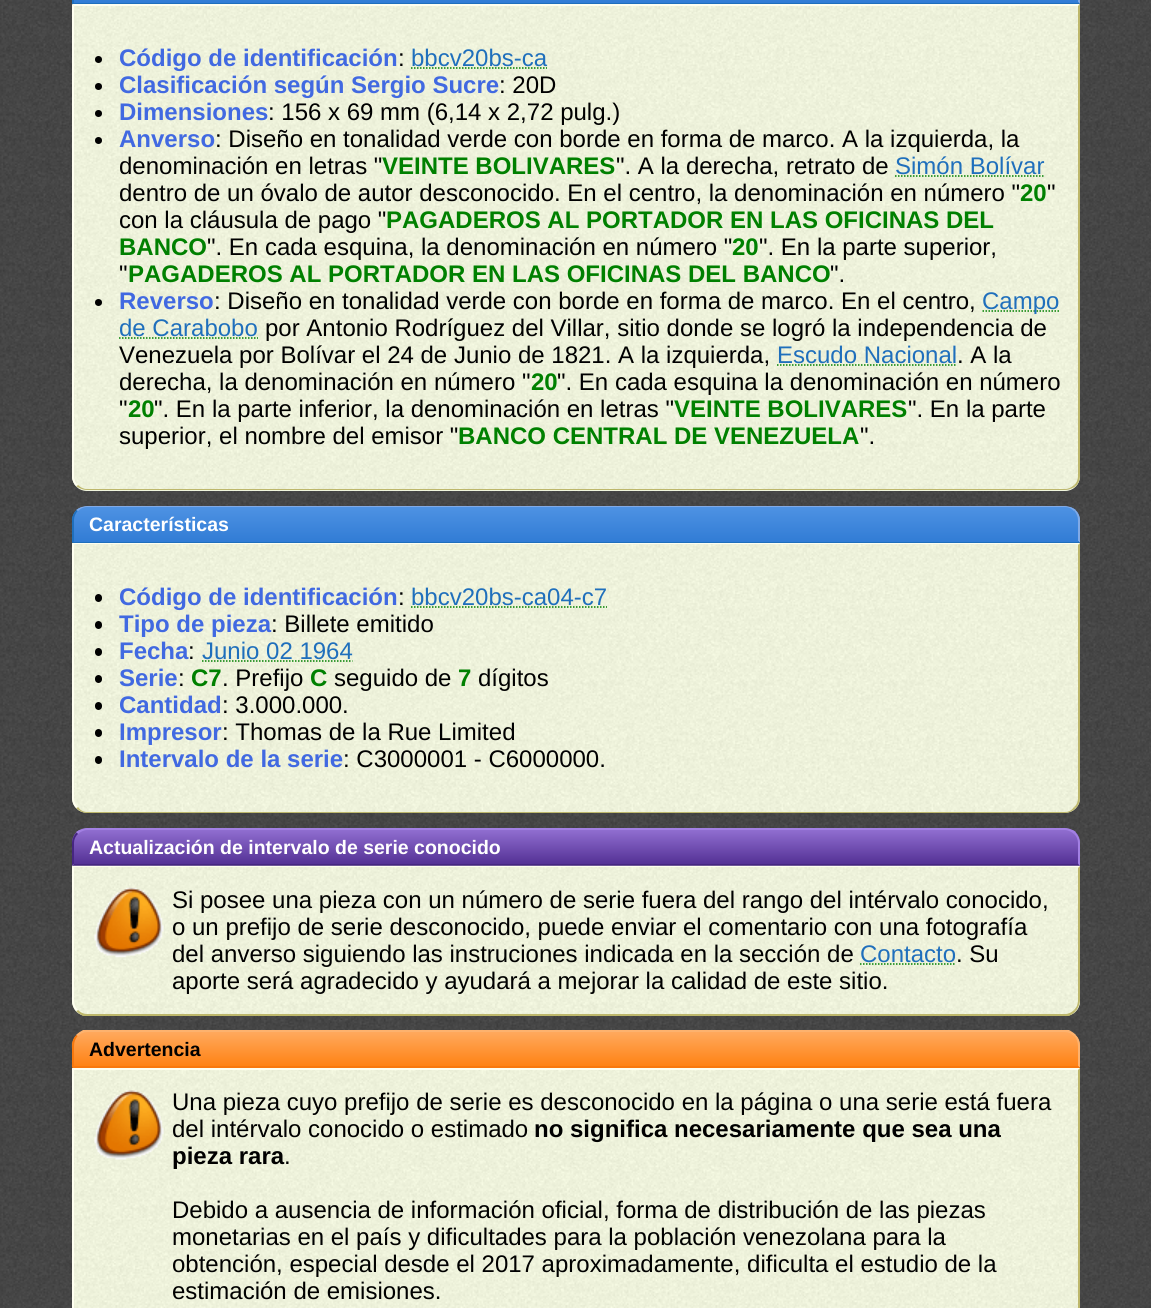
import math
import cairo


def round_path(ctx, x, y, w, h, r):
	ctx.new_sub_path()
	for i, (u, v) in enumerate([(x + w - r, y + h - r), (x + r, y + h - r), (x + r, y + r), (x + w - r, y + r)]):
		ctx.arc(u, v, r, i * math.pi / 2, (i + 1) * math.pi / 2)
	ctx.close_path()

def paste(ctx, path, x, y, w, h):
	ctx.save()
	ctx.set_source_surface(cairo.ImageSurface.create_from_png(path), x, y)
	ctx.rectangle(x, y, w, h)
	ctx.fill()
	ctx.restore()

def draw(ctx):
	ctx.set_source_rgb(1, 1, 1)
	ctx.paint()
	paste(ctx, 'media/1.png', 0, 0, 1151, 1308)
	gradient = cairo.LinearGradient(576, 3, 576, -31)
	gradient.add_color_stop_rgba(0, 0.192, 0.486, 0.835, 1)
	gradient.add_color_stop_rgba(1, 0.306, 0.573, 0.89, 1)
	ctx.set_source(gradient)
	ctx.rectangle(72, 0, 1008, 3)
	ctx.fill()
	ctx.set_source_rgb(0.506, 0.667, 0.902)
	ctx.new_path()
	ctx.move_to(1080, 4)
	ctx.line_to(1080, -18)
	ctx.curve_to(1080, -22, 1078, -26, 1075.5, -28.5)
	ctx.line_to(1074.5, -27.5)
	ctx.curve_to(1076.5, -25, 1078, -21.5, 1078, -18)
	ctx.line_to(1078, 2.5)
	ctx.line_to(1079.5, 4)
	ctx.close_path()
	ctx.fill()
	ctx.set_source_rgb(0.122, 0.435, 0.737)
	ctx.new_path()
	ctx.move_to(1080, 4)
	ctx.line_to(72, 4)
	ctx.line_to(74, 2)
	ctx.line_to(74, 3)
	ctx.line_to(1078, 3)
	ctx.line_to(1078, 2)
	ctx.close_path()
	ctx.fill()
	ctx.new_path()
	ctx.move_to(72, -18)
	ctx.line_to(72, 4)
	ctx.line_to(72.5, 4)
	ctx.line_to(74, 2.5)
	ctx.line_to(74, -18)
	ctx.curve_to(74, -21.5, 75.5, -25, 77.5, -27.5)
	ctx.line_to(76.5, -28.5)
	ctx.curve_to(74, -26, 72, -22, 72, -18)
	ctx.close_path()
	ctx.fill()
	ctx.set_source_rgb(0.945, 0.961, 0.871)
	ctx.new_path()
	ctx.move_to(72, 5)
	ctx.line_to(1080, 5)
	ctx.line_to(1080, 476)
	ctx.curve_to(1080, 484.5, 1073.5, 491, 1065, 491)
	ctx.line_to(87, 491)
	ctx.curve_to(78.5, 491, 72, 484.5, 72, 476)
	ctx.close_path()
	ctx.fill()
	paste(ctx, 'media/2.png', 72, 4, 1008, 486)
	ctx.set_source_rgb(1, 1, 0.941)
	ctx.new_path()
	ctx.move_to(74, 6)
	ctx.line_to(1078, 6)
	ctx.line_to(1080, 4)
	ctx.line_to(72, 4)
	ctx.close_path()
	ctx.fill()
	ctx.set_source_rgb(0.741, 0.718, 0.42)
	ctx.new_path()
	ctx.move_to(1080, 4)
	ctx.line_to(1078, 6)
	ctx.line_to(1078, 476)
	ctx.curve_to(1078, 479, 1077, 483, 1074, 485)
	ctx.line_to(1076, 486)
	ctx.curve_to(1078, 484, 1080, 480, 1080, 476)
	ctx.close_path()
	ctx.fill()
	ctx.new_path()
	ctx.move_to(1076, 486)
	ctx.curve_to(1073, 488, 1069, 490, 1065, 490)
	ctx.line_to(87, 490)
	ctx.curve_to(83, 490, 79, 488, 76, 486)
	ctx.line_to(78, 485)
	ctx.curve_to(80, 487, 83, 489, 87, 489)
	ctx.line_to(1065, 489)
	ctx.curve_to(1069, 489, 1072, 487, 1074, 485)
	ctx.close_path()
	ctx.fill()
	ctx.set_source_rgb(1, 1, 0.941)
	ctx.new_path()
	ctx.move_to(72, 4)
	ctx.line_to(72, 476)
	ctx.curve_to(72, 480, 74, 484, 76, 486)
	ctx.line_to(78, 485)
	ctx.curve_to(75, 483, 74, 479, 74, 476)
	ctx.line_to(74, 6)
	ctx.close_path()
	ctx.fill()
	ctx.set_source_rgb(0, 0, 0)
	ctx.arc(98.5, 59.5, 3.5, 0, 2 * math.pi)
	ctx.fill()
	ctx.select_font_face('Liberation Sans', cairo.FONT_SLANT_NORMAL, cairo.FONT_WEIGHT_BOLD)
	ctx.set_font_size(24)
	ctx.set_source_rgb(0.255, 0.412, 0.882)
	ctx.move_to(119, 66)
	ctx.show_text('Código de identificación')
	ctx.select_font_face('Liberation Sans')
	ctx.set_source_rgb(0, 0, 0)
	ctx.move_to(398, 66)
	ctx.show_text(':')
	ctx.set_source_rgb(0.122, 0.435, 0.737)
	ctx.move_to(411, 66)
	ctx.show_text('bbcv20bs-ca')
	ctx.new_path()
	ctx.move_to(411, 68)
	ctx.line_to(547, 68)
	ctx.set_source_rgb(0, 0.502, 0)
	ctx.set_line_width(1.5)
	ctx.set_dash([1.5, 1.5])
	ctx.stroke()
	ctx.set_source_rgb(0, 0, 0)
	ctx.arc(98.5, 86.5, 3.5, 0, 2 * math.pi)
	ctx.fill()
	ctx.select_font_face('Liberation Sans', cairo.FONT_SLANT_NORMAL, cairo.FONT_WEIGHT_BOLD)
	ctx.set_source_rgb(0.255, 0.412, 0.882)
	ctx.move_to(119, 93)
	ctx.show_text('Clasificación según Sergio Sucre')
	ctx.select_font_face('Liberation Sans')
	ctx.set_source_rgb(0, 0, 0)
	ctx.move_to(499, 93)
	ctx.show_text(': 20D')
	ctx.new_path()
	ctx.arc(98.5, 113.5, 3.5, 0, 2 * math.pi)
	ctx.fill()
	ctx.select_font_face('Liberation Sans', cairo.FONT_SLANT_NORMAL, cairo.FONT_WEIGHT_BOLD)
	ctx.set_source_rgb(0.255, 0.412, 0.882)
	ctx.move_to(119, 120)
	ctx.show_text('Dimensiones')
	ctx.select_font_face('Liberation Sans')
	ctx.set_source_rgb(0, 0, 0)
	ctx.move_to(268, 120)
	ctx.show_text(': 156 x 69 mm (6,14 x 2,72 pulg.)')
	ctx.new_path()
	ctx.arc(98.5, 140.5, 3.5, 0, 2 * math.pi)
	ctx.fill()
	ctx.select_font_face('Liberation Sans', cairo.FONT_SLANT_NORMAL, cairo.FONT_WEIGHT_BOLD)
	ctx.set_source_rgb(0.255, 0.412, 0.882)
	ctx.move_to(119, 147)
	ctx.show_text('Anverso')
	ctx.select_font_face('Liberation Sans')
	ctx.set_source_rgb(0, 0, 0)
	ctx.move_to(215, 147)
	ctx.show_text(': Diseño en tonalidad verde con borde en forma de marco. A la izquierda, la')
	ctx.move_to(119, 174)
	ctx.show_text('denominación en letras "')
	ctx.select_font_face('Liberation Sans', cairo.FONT_SLANT_NORMAL, cairo.FONT_WEIGHT_BOLD)
	ctx.set_source_rgb(0, 0.502, 0)
	ctx.move_to(382, 174)
	ctx.show_text('VEINTE BOLIVARES')
	ctx.select_font_face('Liberation Sans')
	ctx.set_source_rgb(0, 0, 0)
	ctx.move_to(616, 174)
	ctx.show_text('". A la derecha, retrato de')
	ctx.set_source_rgb(0.122, 0.435, 0.737)
	ctx.move_to(895, 174)
	ctx.show_text('Simón Bolívar')
	ctx.new_path()
	ctx.move_to(895, 176)
	ctx.line_to(1044.5, 176)
	ctx.set_source_rgb(0, 0.502, 0)
	ctx.stroke()
	ctx.set_source_rgb(0, 0, 0)
	ctx.move_to(119, 201)
	ctx.show_text('dentro de un óvalo de autor desconocido. En el centro, la denominación en número "')
	ctx.select_font_face('Liberation Sans', cairo.FONT_SLANT_NORMAL, cairo.FONT_WEIGHT_BOLD)
	ctx.set_source_rgb(0, 0.502, 0)
	ctx.move_to(1020, 201)
	ctx.show_text('20')
	ctx.select_font_face('Liberation Sans')
	ctx.set_source_rgb(0, 0, 0)
	ctx.move_to(1047, 201)
	ctx.show_text('"')
	ctx.move_to(119, 228)
	ctx.show_text('con la cláusula de pago "')
	ctx.select_font_face('Liberation Sans', cairo.FONT_SLANT_NORMAL, cairo.FONT_WEIGHT_BOLD)
	ctx.set_source_rgb(0, 0.502, 0)
	ctx.move_to(386, 228)
	ctx.show_text('PAGADEROS AL PORTADOR EN LAS OFICINAS DEL')
	ctx.move_to(119, 255)
	ctx.show_text('BANCO')
	ctx.select_font_face('Liberation Sans')
	ctx.set_source_rgb(0, 0, 0)
	ctx.move_to(207, 255)
	ctx.show_text('". En cada esquina, la denominación en número "')
	ctx.select_font_face('Liberation Sans', cairo.FONT_SLANT_NORMAL, cairo.FONT_WEIGHT_BOLD)
	ctx.set_source_rgb(0, 0.502, 0)
	ctx.move_to(732, 255)
	ctx.show_text('20')
	ctx.select_font_face('Liberation Sans')
	ctx.set_source_rgb(0, 0, 0)
	ctx.move_to(759, 255)
	ctx.show_text('". En la parte superior,')
	ctx.move_to(119, 282)
	ctx.show_text('"')
	ctx.select_font_face('Liberation Sans', cairo.FONT_SLANT_NORMAL, cairo.FONT_WEIGHT_BOLD)
	ctx.set_source_rgb(0, 0.502, 0)
	ctx.move_to(128, 282)
	ctx.show_text('PAGADEROS AL PORTADOR EN LAS OFICINAS DEL BANCO')
	ctx.select_font_face('Liberation Sans')
	ctx.set_source_rgb(0, 0, 0)
	ctx.move_to(830, 282)
	ctx.show_text('".')
	ctx.new_path()
	ctx.arc(98.5, 302.5, 3.5, 0, 2 * math.pi)
	ctx.fill()
	ctx.select_font_face('Liberation Sans', cairo.FONT_SLANT_NORMAL, cairo.FONT_WEIGHT_BOLD)
	ctx.set_source_rgb(0.255, 0.412, 0.882)
	ctx.move_to(119, 309)
	ctx.show_text('Reverso')
	ctx.select_font_face('Liberation Sans')
	ctx.set_source_rgb(0, 0, 0)
	ctx.move_to(214, 309)
	ctx.show_text(': Diseño en tonalidad verde con borde en forma de marco. En el centro,')
	ctx.new_path()
	ctx.move_to(982.5, 311)
	ctx.line_to(1059.5, 311)
	ctx.set_source_rgb(0, 0.502, 0)
	ctx.stroke()
	ctx.set_source_rgb(0.122, 0.435, 0.737)
	ctx.move_to(982, 309)
	ctx.show_text('Campo')
	ctx.move_to(119, 336)
	ctx.show_text('de Carabobo')
	ctx.new_path()
	ctx.move_to(119, 338)
	ctx.line_to(258, 338)
	ctx.set_source_rgb(0, 0.502, 0)
	ctx.stroke()
	ctx.set_source_rgb(0, 0, 0)
	ctx.move_to(265, 336)
	ctx.show_text('por Antonio Rodríguez del Villar, sitio donde se logró la independencia de')
	ctx.move_to(119, 363)
	ctx.show_text('Venezuela por Bolívar el 24 de Junio de 1821. A la izquierda,')
	ctx.set_source_rgb(0.122, 0.435, 0.737)
	ctx.move_to(777, 363)
	ctx.show_text('Escudo Nacional')
	ctx.new_path()
	ctx.move_to(777, 365)
	ctx.line_to(957, 365)
	ctx.set_source_rgb(0, 0.502, 0)
	ctx.stroke()
	ctx.set_source_rgb(0, 0, 0)
	ctx.move_to(957, 363)
	ctx.show_text('. A la')
	ctx.move_to(119, 390)
	ctx.show_text('derecha, la denominación en número "')
	ctx.select_font_face('Liberation Sans', cairo.FONT_SLANT_NORMAL, cairo.FONT_WEIGHT_BOLD)
	ctx.set_source_rgb(0, 0.502, 0)
	ctx.move_to(531, 390)
	ctx.show_text('20')
	ctx.select_font_face('Liberation Sans')
	ctx.set_source_rgb(0, 0, 0)
	ctx.move_to(557, 390)
	ctx.show_text('". En cada esquina la denominación en número')
	ctx.move_to(119, 417)
	ctx.show_text('"')
	ctx.select_font_face('Liberation Sans', cairo.FONT_SLANT_NORMAL, cairo.FONT_WEIGHT_BOLD)
	ctx.set_source_rgb(0, 0.502, 0)
	ctx.move_to(128, 417)
	ctx.show_text('20')
	ctx.select_font_face('Liberation Sans')
	ctx.set_source_rgb(0, 0, 0)
	ctx.move_to(154, 417)
	ctx.show_text('". En la parte inferior, la denominación en letras "')
	ctx.select_font_face('Liberation Sans', cairo.FONT_SLANT_NORMAL, cairo.FONT_WEIGHT_BOLD)
	ctx.set_source_rgb(0, 0.502, 0)
	ctx.move_to(674, 417)
	ctx.show_text('VEINTE BOLIVARES')
	ctx.select_font_face('Liberation Sans')
	ctx.set_source_rgb(0, 0, 0)
	ctx.move_to(908, 417)
	ctx.show_text('". En la parte')
	ctx.move_to(119, 444)
	ctx.show_text('superior, el nombre del emisor "')
	ctx.select_font_face('Liberation Sans', cairo.FONT_SLANT_NORMAL, cairo.FONT_WEIGHT_BOLD)
	ctx.set_source_rgb(0, 0.502, 0)
	ctx.move_to(458, 444)
	ctx.show_text('BANCO CENTRAL DE VENEZUELA')
	ctx.select_font_face('Liberation Sans')
	ctx.set_source_rgb(0, 0, 0)
	ctx.move_to(860, 444)
	ctx.show_text('".')
	ctx.save()
	ctx.new_path()
	ctx.move_to(87, 506)
	ctx.line_to(1065, 506)
	ctx.curve_to(1073.5, 506, 1080, 512.5, 1080, 521)
	ctx.line_to(1080, 543)
	ctx.line_to(72, 543)
	ctx.line_to(72, 521)
	ctx.curve_to(72, 512.5, 78.5, 506, 87, 506)
	ctx.close_path()
	ctx.clip()
	gradient = cairo.LinearGradient(576, 542, 576, 507)
	gradient.add_color_stop_rgba(0, 0.192, 0.486, 0.835, 1)
	gradient.add_color_stop_rgba(1, 0.306, 0.573, 0.89, 1)
	ctx.set_source(gradient)
	ctx.rectangle(72, 507, 1008, 35)
	ctx.fill()
	ctx.restore()
	ctx.set_source_rgb(0.506, 0.667, 0.902)
	ctx.new_path()
	ctx.move_to(87, 506)
	ctx.curve_to(83, 506, 79, 508, 76, 510)
	ctx.line_to(78, 511)
	ctx.curve_to(80, 509, 83, 507, 87, 507)
	ctx.line_to(1065, 507)
	ctx.curve_to(1069, 507, 1072, 509, 1074, 511)
	ctx.line_to(1076, 510)
	ctx.curve_to(1073, 508, 1069, 506, 1065, 506)
	ctx.close_path()
	ctx.fill()
	ctx.new_path()
	ctx.move_to(1075.5, 510)
	ctx.curve_to(1078, 512.5, 1080, 516, 1080, 520)
	ctx.line_to(1080, 543)
	ctx.line_to(1078, 541)
	ctx.line_to(1078, 520)
	ctx.curve_to(1078, 516.5, 1076.5, 513.5, 1074.5, 511)
	ctx.close_path()
	ctx.fill()
	ctx.set_source_rgb(0.122, 0.435, 0.737)
	ctx.new_path()
	ctx.move_to(1080, 543)
	ctx.line_to(1078, 541)
	ctx.line_to(1078, 542)
	ctx.line_to(74, 542)
	ctx.line_to(74, 541)
	ctx.line_to(72, 543)
	ctx.close_path()
	ctx.fill()
	ctx.new_path()
	ctx.move_to(72, 543)
	ctx.line_to(74, 541)
	ctx.line_to(74, 520)
	ctx.curve_to(74, 516.5, 75.5, 513.5, 77.5, 511)
	ctx.line_to(76.5, 510)
	ctx.curve_to(74, 512.5, 72, 516, 72, 520)
	ctx.close_path()
	ctx.fill()
	ctx.select_font_face('Liberation Sans', cairo.FONT_SLANT_NORMAL, cairo.FONT_WEIGHT_BOLD)
	ctx.set_font_size(19.5)
	ctx.set_source_rgb(1, 1, 1)
	ctx.move_to(89, 531)
	ctx.show_text('Características')
	paste(ctx, 'media/3.png', 72, 543, 1008, 270)
	ctx.set_source_rgb(1, 1, 0.941)
	ctx.new_path()
	ctx.move_to(72, 543)
	ctx.line_to(74, 545)
	ctx.line_to(74, 544)
	ctx.line_to(1078, 544)
	ctx.line_to(1078, 545)
	ctx.line_to(1080, 543)
	ctx.close_path()
	ctx.fill()
	ctx.set_source_rgb(0.741, 0.718, 0.42)
	ctx.new_path()
	ctx.move_to(1080, 543)
	ctx.line_to(1078, 545)
	ctx.line_to(1078, 798)
	ctx.curve_to(1078, 801, 1077, 805, 1074, 807)
	ctx.line_to(1076, 808)
	ctx.curve_to(1078, 806, 1080, 802, 1080, 798)
	ctx.close_path()
	ctx.fill()
	ctx.new_path()
	ctx.move_to(87, 813)
	ctx.line_to(1065, 813)
	ctx.curve_to(1069, 813, 1073, 811, 1076, 808)
	ctx.line_to(1074, 807)
	ctx.curve_to(1072, 810, 1069, 812, 1065, 812)
	ctx.line_to(87, 812)
	ctx.curve_to(83, 812, 80, 810, 78, 807)
	ctx.line_to(76, 808)
	ctx.curve_to(79, 811, 83, 813, 87, 813)
	ctx.close_path()
	ctx.fill()
	ctx.set_source_rgb(1, 1, 0.941)
	ctx.new_path()
	ctx.move_to(72, 543)
	ctx.line_to(72, 798)
	ctx.curve_to(72, 802, 74, 806, 76, 808)
	ctx.line_to(78, 807)
	ctx.curve_to(75, 805, 74, 801, 74, 798)
	ctx.line_to(74, 545)
	ctx.close_path()
	ctx.fill()
	ctx.set_source_rgb(0, 0, 0)
	round_path(ctx, 95, 594, 7, 8, 3.5)
	ctx.fill()
	ctx.set_font_size(24)
	ctx.set_source_rgb(0.255, 0.412, 0.882)
	ctx.move_to(119, 605)
	ctx.show_text('Código de identificación')
	ctx.select_font_face('Liberation Sans')
	ctx.set_source_rgb(0, 0, 0)
	ctx.move_to(398, 605)
	ctx.show_text(':')
	ctx.set_source_rgb(0.122, 0.435, 0.737)
	ctx.move_to(411, 605)
	ctx.show_text('bbcv20bs-ca04-c7')
	ctx.new_path()
	ctx.move_to(411, 607)
	ctx.line_to(607, 607)
	ctx.set_source_rgb(0, 0.502, 0)
	ctx.stroke()
	ctx.set_source_rgb(0, 0, 0)
	round_path(ctx, 95, 621, 7, 8, 3.5)
	ctx.fill()
	ctx.select_font_face('Liberation Sans', cairo.FONT_SLANT_NORMAL, cairo.FONT_WEIGHT_BOLD)
	ctx.set_source_rgb(0.255, 0.412, 0.882)
	ctx.move_to(119, 632)
	ctx.show_text('Tipo de pieza')
	ctx.select_font_face('Liberation Sans')
	ctx.set_source_rgb(0, 0, 0)
	ctx.move_to(271, 632)
	ctx.show_text(': Billete emitido')
	round_path(ctx, 95, 648, 7, 8, 3.5)
	ctx.fill()
	ctx.select_font_face('Liberation Sans', cairo.FONT_SLANT_NORMAL, cairo.FONT_WEIGHT_BOLD)
	ctx.set_source_rgb(0.255, 0.412, 0.882)
	ctx.move_to(119, 659)
	ctx.show_text('Fecha')
	ctx.select_font_face('Liberation Sans')
	ctx.set_source_rgb(0, 0, 0)
	ctx.move_to(188, 659)
	ctx.show_text(':')
	ctx.set_source_rgb(0.122, 0.435, 0.737)
	ctx.move_to(202, 659)
	ctx.show_text('Junio 02 1964')
	ctx.new_path()
	ctx.move_to(202, 661)
	ctx.line_to(352.5, 661)
	ctx.set_source_rgb(0, 0.502, 0)
	ctx.stroke()
	ctx.set_source_rgb(0, 0, 0)
	round_path(ctx, 95, 675, 7, 8, 3.5)
	ctx.fill()
	ctx.select_font_face('Liberation Sans', cairo.FONT_SLANT_NORMAL, cairo.FONT_WEIGHT_BOLD)
	ctx.set_source_rgb(0.255, 0.412, 0.882)
	ctx.move_to(119, 686)
	ctx.show_text('Serie')
	ctx.select_font_face('Liberation Sans')
	ctx.set_source_rgb(0, 0, 0)
	ctx.move_to(178, 686)
	ctx.show_text(':')
	ctx.select_font_face('Liberation Sans', cairo.FONT_SLANT_NORMAL, cairo.FONT_WEIGHT_BOLD)
	ctx.set_source_rgb(0, 0.502, 0)
	ctx.move_to(191, 686)
	ctx.show_text('C7')
	ctx.select_font_face('Liberation Sans')
	ctx.set_source_rgb(0, 0, 0)
	ctx.move_to(222, 686)
	ctx.show_text('. Prefijo')
	ctx.select_font_face('Liberation Sans', cairo.FONT_SLANT_NORMAL, cairo.FONT_WEIGHT_BOLD)
	ctx.set_source_rgb(0, 0.502, 0)
	ctx.move_to(310, 686)
	ctx.show_text('C')
	ctx.select_font_face('Liberation Sans')
	ctx.set_source_rgb(0, 0, 0)
	ctx.move_to(334, 686)
	ctx.show_text('seguido de')
	ctx.select_font_face('Liberation Sans', cairo.FONT_SLANT_NORMAL, cairo.FONT_WEIGHT_BOLD)
	ctx.set_source_rgb(0, 0.502, 0)
	ctx.move_to(458, 686)
	ctx.show_text('7')
	ctx.select_font_face('Liberation Sans')
	ctx.set_source_rgb(0, 0, 0)
	ctx.move_to(478, 686)
	ctx.show_text('dígitos')
	round_path(ctx, 95, 702, 7, 8, 3.5)
	ctx.fill()
	ctx.select_font_face('Liberation Sans', cairo.FONT_SLANT_NORMAL, cairo.FONT_WEIGHT_BOLD)
	ctx.set_source_rgb(0.255, 0.412, 0.882)
	ctx.move_to(119, 713)
	ctx.show_text('Cantidad')
	ctx.select_font_face('Liberation Sans')
	ctx.set_source_rgb(0, 0, 0)
	ctx.move_to(222, 713)
	ctx.show_text(': 3.000.000.')
	round_path(ctx, 95, 729, 7, 8, 3.5)
	ctx.fill()
	ctx.select_font_face('Liberation Sans', cairo.FONT_SLANT_NORMAL, cairo.FONT_WEIGHT_BOLD)
	ctx.set_source_rgb(0.255, 0.412, 0.882)
	ctx.move_to(119, 740)
	ctx.show_text('Impresor')
	ctx.select_font_face('Liberation Sans')
	ctx.set_source_rgb(0, 0, 0)
	ctx.move_to(222, 740)
	ctx.show_text(': Thomas de la Rue Limited')
	round_path(ctx, 95, 756, 7, 8, 3.5)
	ctx.fill()
	ctx.select_font_face('Liberation Sans', cairo.FONT_SLANT_NORMAL, cairo.FONT_WEIGHT_BOLD)
	ctx.set_source_rgb(0.255, 0.412, 0.882)
	ctx.move_to(119, 767)
	ctx.show_text('Intervalo de la serie')
	ctx.select_font_face('Liberation Sans')
	ctx.set_source_rgb(0, 0, 0)
	ctx.move_to(343, 767)
	ctx.show_text(': C3000001 - C6000000.')
	ctx.save()
	ctx.new_path()
	ctx.move_to(87, 828)
	ctx.line_to(1065, 828)
	ctx.curve_to(1073.5, 828, 1080, 834.5, 1080, 843)
	ctx.line_to(1080, 866)
	ctx.line_to(72, 866)
	ctx.line_to(72, 843)
	ctx.curve_to(72, 834.5, 78.5, 828, 87, 828)
	ctx.close_path()
	ctx.clip()
	gradient = cairo.LinearGradient(576, 864, 576, 830)
	gradient.add_color_stop_rgba(0, 0.329, 0.192, 0.584, 1)
	gradient.add_color_stop_rgba(1, 0.565, 0.431, 0.816, 1)
	ctx.set_source(gradient)
	ctx.rectangle(72, 830, 1008, 34)
	ctx.fill()
	ctx.restore()
	gradient = cairo.LinearGradient(576, 899, 576, 864)
	gradient.add_color_stop_rgba(0, 0.329, 0.192, 0.584, 1)
	gradient.add_color_stop_rgba(1, 0.565, 0.431, 0.816, 1)
	ctx.set_source(gradient)
	ctx.rectangle(72, 864, 1008, 2)
	ctx.fill()
	ctx.set_source_rgb(0.635, 0.502, 0.89)
	ctx.new_path()
	ctx.move_to(87, 828)
	ctx.curve_to(83, 828, 79, 830, 76, 832)
	ctx.line_to(78, 834)
	ctx.curve_to(80, 832, 84, 830, 87, 830)
	ctx.line_to(1065, 830)
	ctx.curve_to(1068, 830, 1072, 832, 1074, 834)
	ctx.line_to(1076, 832)
	ctx.curve_to(1073, 830, 1069, 828, 1065, 828)
	ctx.close_path()
	ctx.fill()
	ctx.new_path()
	ctx.move_to(1080, 865.5)
	ctx.line_to(1080, 843)
	ctx.curve_to(1080, 839, 1078, 835, 1075.5, 832.5)
	ctx.line_to(1074, 834)
	ctx.curve_to(1076.5, 836, 1078, 839.5, 1078, 843)
	ctx.line_to(1078, 863.5)
	ctx.close_path()
	ctx.fill()
	ctx.set_source_rgb(0.275, 0.149, 0.506)
	ctx.new_path()
	ctx.move_to(1080, 866)
	ctx.line_to(72, 866)
	ctx.line_to(74, 864)
	ctx.line_to(1078, 864)
	ctx.close_path()
	ctx.fill()
	ctx.new_path()
	ctx.move_to(72, 865.5)
	ctx.line_to(74, 863.5)
	ctx.line_to(74, 843)
	ctx.curve_to(74, 839.5, 75.5, 836, 78, 834)
	ctx.line_to(76.5, 832.5)
	ctx.curve_to(74, 835, 72, 839, 72, 843)
	ctx.close_path()
	ctx.fill()
	ctx.select_font_face('Liberation Sans', cairo.FONT_SLANT_NORMAL, cairo.FONT_WEIGHT_BOLD)
	ctx.set_font_size(19.5)
	ctx.set_source_rgb(1, 1, 1)
	ctx.move_to(89, 854)
	ctx.show_text('Actualización de intervalo de serie conocido')
	ctx.set_source_rgb(0.945, 0.961, 0.871)
	ctx.new_path()
	ctx.move_to(72, 866)
	ctx.line_to(1080, 866)
	ctx.line_to(1080, 1001)
	ctx.curve_to(1080, 1009.5, 1073.5, 1016, 1065, 1016)
	ctx.line_to(87, 1016)
	ctx.curve_to(78.5, 1016, 72, 1009.5, 72, 1001)
	ctx.close_path()
	ctx.fill()
	paste(ctx, 'media/4.png', 72, 865, 1008, 150)
	ctx.set_source_rgb(1, 1, 0.941)
	ctx.new_path()
	ctx.move_to(74, 867)
	ctx.line_to(1078, 867)
	ctx.line_to(1078, 868)
	ctx.line_to(1080, 866)
	ctx.line_to(72, 866)
	ctx.line_to(74, 868)
	ctx.close_path()
	ctx.fill()
	ctx.set_source_rgb(0.741, 0.718, 0.42)
	ctx.new_path()
	ctx.move_to(1080, 1000)
	ctx.line_to(1080, 866)
	ctx.line_to(1078, 868)
	ctx.line_to(1078, 1000)
	ctx.curve_to(1078, 1004, 1077, 1007, 1074, 1010)
	ctx.line_to(1076, 1011)
	ctx.curve_to(1078, 1008, 1080, 1004, 1080, 1000)
	ctx.close_path()
	ctx.fill()
	ctx.new_path()
	ctx.move_to(83, 1016)
	ctx.curve_to(81, 1015, 78, 1013, 76, 1011)
	ctx.line_to(78, 1010)
	ctx.curve_to(80, 1012, 83, 1014, 87, 1014)
	ctx.line_to(1065, 1014)
	ctx.curve_to(1069, 1014, 1072, 1012, 1074, 1010)
	ctx.line_to(1076, 1011)
	ctx.curve_to(1074, 1013, 1071, 1015, 1069, 1016)
	ctx.close_path()
	ctx.fill()
	ctx.set_source_rgb(1, 1, 0.941)
	ctx.new_path()
	ctx.move_to(72, 866)
	ctx.line_to(74, 868)
	ctx.line_to(74, 1000)
	ctx.curve_to(74, 1004, 75, 1007, 78, 1010)
	ctx.line_to(76, 1011)
	ctx.curve_to(74, 1008, 72, 1004, 72, 1000)
	ctx.close_path()
	ctx.fill()
	paste(ctx, 'media/5.png', 94, 887, 70, 71)
	ctx.select_font_face('Liberation Sans')
	ctx.set_font_size(24)
	ctx.set_source_rgb(0, 0, 0)
	for x, y, s in [
		(172, 908, 'Si posee una pieza con un número de serie fuera del rango del intérvalo conocido,'),
		(172, 935, 'o un prefijo de serie desconocido, puede enviar el comentario con una fotografía'),
		(172, 962, 'del anverso siguiendo las instruciones indicada en la sección de'),
	]:
		ctx.move_to(x, y)
		ctx.show_text(s)
	ctx.set_source_rgb(0.122, 0.435, 0.737)
	ctx.move_to(860, 962)
	ctx.show_text('Contacto')
	ctx.new_path()
	ctx.move_to(860, 964)
	ctx.line_to(956, 964)
	ctx.set_source_rgb(0, 0.502, 0)
	ctx.stroke()
	ctx.set_source_rgb(0, 0, 0)
	ctx.move_to(956, 962)
	ctx.show_text('. Su')
	ctx.move_to(172, 989)
	ctx.show_text('aporte será agradecido y ayudará a mejorar la calidad de este sitio.')
	ctx.save()
	ctx.new_path()
	ctx.move_to(87, 1031)
	ctx.line_to(1065, 1031)
	ctx.curve_to(1073.5, 1031, 1080, 1037.5, 1080, 1046)
	ctx.line_to(1080, 1068)
	ctx.line_to(72, 1068)
	ctx.line_to(72, 1046)
	ctx.curve_to(72, 1037.5, 78.5, 1031, 87, 1031)
	ctx.close_path()
	ctx.clip()
	gradient = cairo.LinearGradient(576, 1067, 576, 1032)
	gradient.add_color_stop_rgba(0, 1, 0.506, 0.071, 1)
	gradient.add_color_stop_rgba(1, 1, 0.663, 0.365, 1)
	ctx.set_source(gradient)
	ctx.rectangle(72, 1032, 1008, 35)
	ctx.fill()
	ctx.restore()
	ctx.set_source_rgb(0.992, 0.698, 0.431)
	ctx.new_path()
	ctx.move_to(87, 1032)
	ctx.curve_to(83, 1032, 80, 1034, 78, 1036)
	ctx.line_to(76, 1035)
	ctx.curve_to(78, 1033, 81, 1031, 83, 1030)
	ctx.line_to(1069, 1030)
	ctx.curve_to(1071, 1031, 1074, 1033, 1076, 1035)
	ctx.line_to(1074, 1036)
	ctx.curve_to(1072, 1034, 1069, 1032, 1065, 1032)
	ctx.close_path()
	ctx.fill()
	ctx.new_path()
	ctx.move_to(1080, 1068)
	ctx.line_to(1080, 1046)
	ctx.curve_to(1080, 1041.5, 1078.5, 1037.5, 1075.5, 1035)
	ctx.line_to(1074.5, 1036)
	ctx.curve_to(1076.5, 1038.5, 1078, 1042, 1078, 1046)
	ctx.line_to(1078, 1066)
	ctx.close_path()
	ctx.fill()
	ctx.set_source_rgb(0.973, 0.471, 0.051)
	ctx.new_path()
	ctx.move_to(1080, 1068)
	ctx.line_to(1078, 1066)
	ctx.line_to(74, 1066)
	ctx.line_to(72, 1068)
	ctx.close_path()
	ctx.fill()
	ctx.new_path()
	ctx.move_to(72, 1068)
	ctx.line_to(74, 1066)
	ctx.line_to(74, 1046)
	ctx.curve_to(74, 1042, 75.5, 1038.5, 77.5, 1036)
	ctx.line_to(76.5, 1035)
	ctx.curve_to(73.5, 1037.5, 72, 1041.5, 72, 1046)
	ctx.close_path()
	ctx.fill()
	ctx.select_font_face('Liberation Sans', cairo.FONT_SLANT_NORMAL, cairo.FONT_WEIGHT_BOLD)
	ctx.set_font_size(19.5)
	ctx.set_source_rgb(0, 0, 0)
	ctx.move_to(89, 1056)
	ctx.show_text('Advertencia')
	paste(ctx, 'media/6.png', 72, 1068, 1008, 240)
	ctx.set_source_rgb(1, 1, 0.941)
	ctx.new_path()
	ctx.move_to(72, 1068)
	ctx.line_to(74, 1070)
	ctx.line_to(1078, 1070)
	ctx.line_to(1080, 1068)
	ctx.close_path()
	ctx.fill()
	ctx.set_source_rgb(0.741, 0.718, 0.42)
	ctx.new_path()
	ctx.move_to(1080, 1068)
	ctx.line_to(1078, 1070)
	ctx.line_to(1078, 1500)
	ctx.curve_to(1078, 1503, 1077, 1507, 1074, 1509)
	ctx.line_to(1076, 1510)
	ctx.curve_to(1078, 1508, 1080, 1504, 1080, 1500)
	ctx.close_path()
	ctx.fill()
	ctx.set_source_rgb(1, 1, 0.941)
	ctx.new_path()
	ctx.move_to(74, 1070)
	ctx.line_to(72, 1068)
	ctx.line_to(72, 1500)
	ctx.curve_to(72, 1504, 74, 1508, 76, 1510)
	ctx.line_to(78, 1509)
	ctx.curve_to(75, 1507, 74, 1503, 74, 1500)
	ctx.close_path()
	ctx.fill()
	paste(ctx, 'media/7.png', 94, 1090, 70, 70)
	ctx.select_font_face('Liberation Sans')
	ctx.set_font_size(24)
	ctx.set_source_rgb(0, 0, 0)
	ctx.move_to(172, 1110)
	ctx.show_text('Una pieza cuyo prefijo de serie es desconocido en la página o una serie está fuera')
	ctx.move_to(172, 1137)
	ctx.show_text('del intérvalo conocido o estimado')
	ctx.select_font_face('Liberation Sans', cairo.FONT_SLANT_NORMAL, cairo.FONT_WEIGHT_BOLD)
	ctx.move_to(534, 1137)
	ctx.show_text('no significa necesariamente que sea una')
	ctx.move_to(172, 1164)
	ctx.show_text('pieza rara')
	ctx.select_font_face('Liberation Sans')
	for x, y, s in [
		(284, 1164, '.'),
		(172, 1218, 'Debido a ausencia de información oficial, forma de distribución de las piezas'),
		(172, 1245, 'monetarias en el país y dificultades para la población venezolana para la'),
		(172, 1272, 'obtención, especial desde el 2017 aproximadamente, dificulta el estudio de la'),
		(172, 1299, 'estimación de emisiones.'),
	]:
		ctx.move_to(x, y)
		ctx.show_text(s)


surface = cairo.ImageSurface(cairo.FORMAT_RGB24, 1151, 1308)
ctx = cairo.Context(surface)
options = cairo.FontOptions()
options.set_hint_metrics(cairo.HINT_METRICS_OFF)
options.set_hint_style(cairo.HINT_STYLE_NONE)
ctx.set_font_options(options)
ctx.set_miter_limit(4)
draw(ctx)
surface.write_to_png('image.png')
